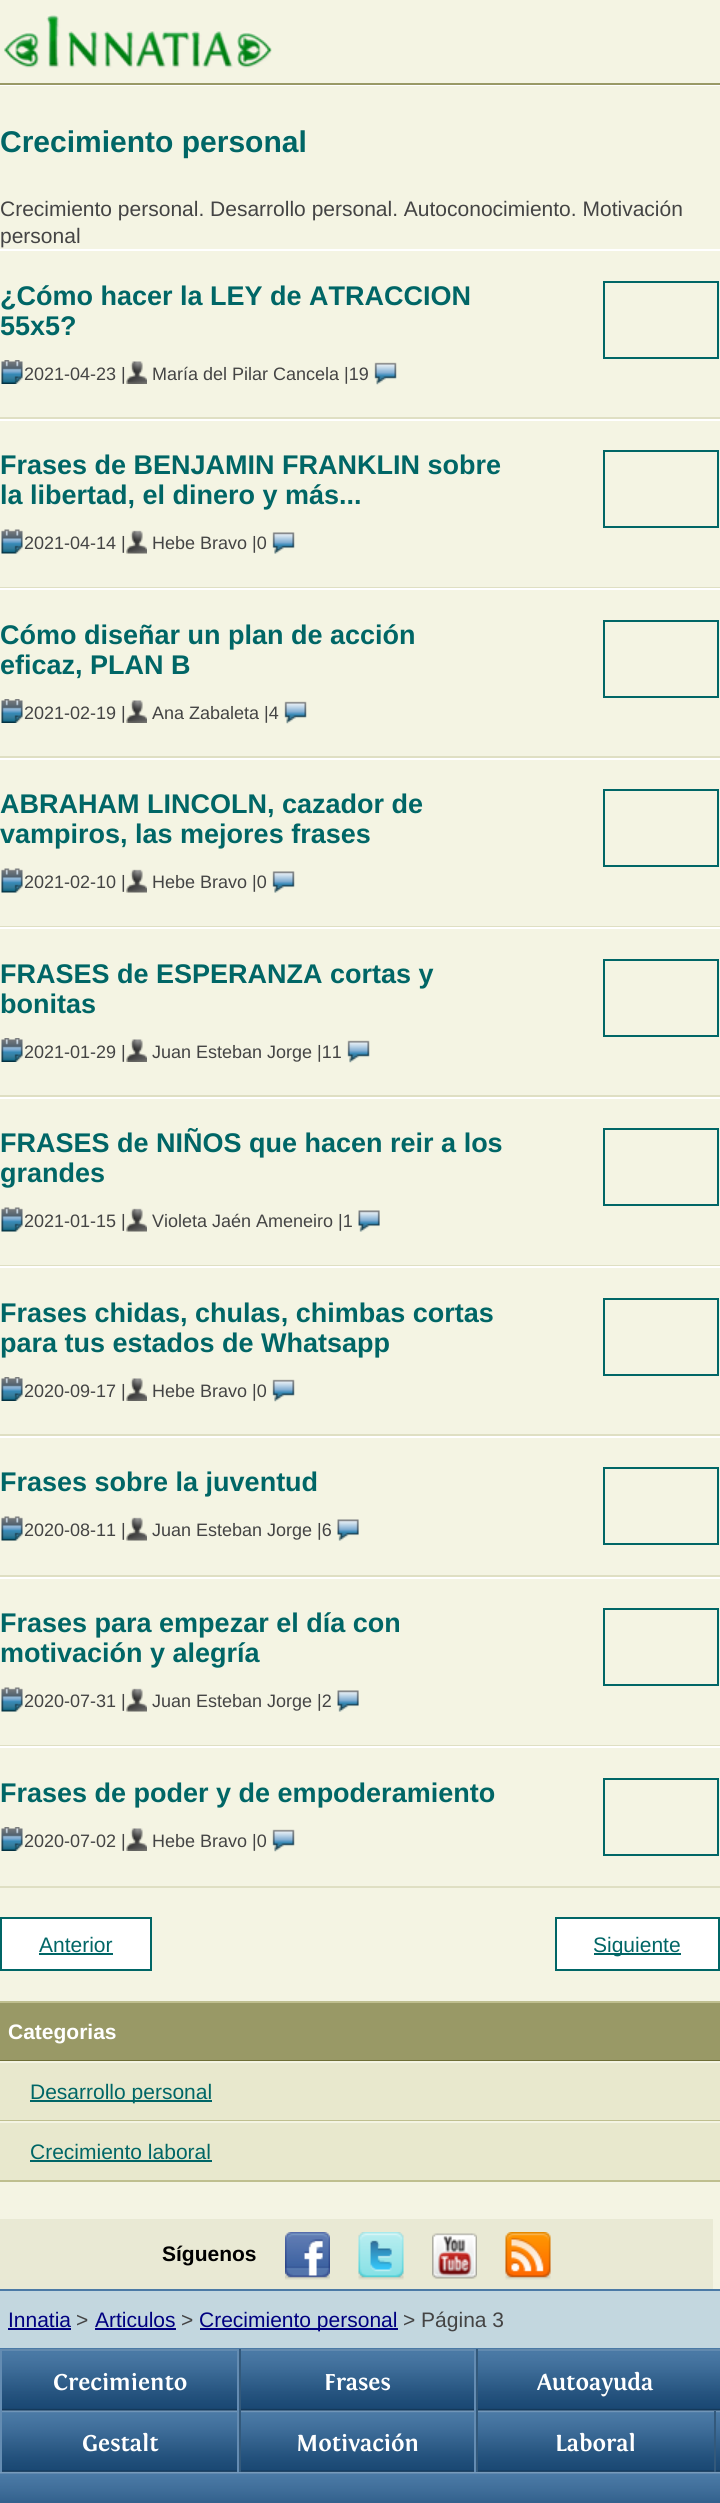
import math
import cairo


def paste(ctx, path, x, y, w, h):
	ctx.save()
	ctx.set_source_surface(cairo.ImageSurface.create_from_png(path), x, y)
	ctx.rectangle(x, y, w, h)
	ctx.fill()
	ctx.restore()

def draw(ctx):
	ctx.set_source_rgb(0.957, 0.957, 0.89)
	ctx.paint()
	ctx.set_source_rgb(0.6, 0.6, 0.4)
	ctx.rectangle(0, 83, 720, 2)
	ctx.fill()
	paste(ctx, 'media/1.png', 4, 15, 268, 53)
	ctx.set_source_rgb(1, 1, 1)
	ctx.rectangle(0, 85, 720, 1)
	ctx.fill()
	ctx.select_font_face('Liberation Sans', cairo.FONT_SLANT_NORMAL, cairo.FONT_WEIGHT_BOLD)
	ctx.set_font_size(30)
	ctx.set_source_rgb(0, 0.4, 0.4)
	ctx.move_to(0, 152)
	ctx.show_text('Crecimiento personal')
	ctx.select_font_face('Liberation Sans')
	ctx.set_font_size(21)
	ctx.set_source_rgb(0.267, 0.267, 0.267)
	ctx.move_to(0, 216)
	ctx.show_text('Crecimiento personal. Desarrollo personal. Autoconocimiento. Motivación')
	ctx.move_to(0, 243)
	ctx.show_text('personal')
	ctx.set_source_rgb(1, 1, 1)
	ctx.rectangle(0, 249, 720, 2)
	ctx.fill()
	ctx.set_source_rgb(0.875, 0.875, 0.765)
	ctx.rectangle(0, 417, 720, 2)
	ctx.fill()
	ctx.select_font_face('Liberation Sans', cairo.FONT_SLANT_NORMAL, cairo.FONT_WEIGHT_BOLD)
	ctx.set_font_size(27)
	ctx.set_source_rgb(0, 0.4, 0.4)
	ctx.move_to(0, 305)
	ctx.show_text('¿Cómo hacer la LEY de ATRACCION')
	ctx.move_to(0, 335)
	ctx.show_text('55x5?')
	ctx.rectangle(604, 282, 114, 76)
	ctx.stroke()
	paste(ctx, 'media/2.png', 1, 360, 22, 24)
	ctx.select_font_face('Liberation Sans')
	ctx.set_font_size(18)
	ctx.set_source_rgb(0.267, 0.267, 0.267)
	ctx.move_to(24, 380)
	ctx.show_text('2021-04-23 |')
	paste(ctx, 'media/3.png', 126, 361, 21, 23)
	ctx.move_to(152, 380)
	ctx.show_text('María del Pilar Cancela |19')
	paste(ctx, 'media/4.png', 374, 362, 23, 23)
	ctx.set_source_rgb(1, 1, 1)
	ctx.rectangle(0, 419, 720, 2)
	ctx.fill()
	ctx.set_source_rgb(0.875, 0.875, 0.765)
	ctx.rectangle(0, 587, 720, 1)
	ctx.fill()
	ctx.select_font_face('Liberation Sans', cairo.FONT_SLANT_NORMAL, cairo.FONT_WEIGHT_BOLD)
	ctx.set_font_size(27)
	ctx.set_source_rgb(0, 0.4, 0.4)
	ctx.move_to(0, 474)
	ctx.show_text('Frases de BENJAMIN FRANKLIN sobre')
	ctx.move_to(0, 504)
	ctx.show_text('la libertad, el dinero y más...')
	ctx.rectangle(604, 451, 114, 76)
	ctx.stroke()
	paste(ctx, 'media/5.png', 1, 529, 22, 25)
	ctx.select_font_face('Liberation Sans')
	ctx.set_font_size(18)
	ctx.set_source_rgb(0.267, 0.267, 0.267)
	ctx.move_to(24, 549)
	ctx.show_text('2021-04-14 |')
	paste(ctx, 'media/6.png', 126, 530, 21, 24)
	ctx.move_to(152, 549)
	ctx.show_text('Hebe Bravo |0')
	paste(ctx, 'media/7.png', 272, 532, 23, 22)
	ctx.set_source_rgb(1, 1, 1)
	ctx.rectangle(0, 588, 720, 2)
	ctx.fill()
	ctx.set_source_rgb(0.875, 0.875, 0.765)
	ctx.rectangle(0, 756, 720, 2)
	ctx.fill()
	ctx.select_font_face('Liberation Sans', cairo.FONT_SLANT_NORMAL, cairo.FONT_WEIGHT_BOLD)
	ctx.set_font_size(27)
	ctx.set_source_rgb(0, 0.4, 0.4)
	ctx.move_to(0, 644)
	ctx.show_text('Cómo diseñar un plan de acción')
	ctx.move_to(0, 674)
	ctx.show_text('eficaz, PLAN B')
	ctx.rectangle(604, 621, 114, 76)
	ctx.stroke()
	paste(ctx, 'media/2.png', 1, 699, 22, 24)
	ctx.select_font_face('Liberation Sans')
	ctx.set_font_size(18)
	ctx.set_source_rgb(0.267, 0.267, 0.267)
	ctx.move_to(24, 719)
	ctx.show_text('2021-02-19 |')
	paste(ctx, 'media/3.png', 126, 700, 21, 23)
	ctx.move_to(152, 719)
	ctx.show_text('Ana Zabaleta |4')
	paste(ctx, 'media/4.png', 284, 701, 23, 23)
	ctx.set_source_rgb(1, 1, 1)
	ctx.rectangle(0, 758, 720, 2)
	ctx.fill()
	ctx.set_source_rgb(0.875, 0.875, 0.765)
	ctx.rectangle(0, 926, 720, 1)
	ctx.fill()
	ctx.select_font_face('Liberation Sans', cairo.FONT_SLANT_NORMAL, cairo.FONT_WEIGHT_BOLD)
	ctx.set_font_size(27)
	ctx.set_source_rgb(0, 0.4, 0.4)
	ctx.move_to(0, 813)
	ctx.show_text('ABRAHAM LINCOLN, cazador de')
	ctx.move_to(0, 843)
	ctx.show_text('vampiros, las mejores frases')
	ctx.rectangle(604, 790, 114, 76)
	ctx.stroke()
	paste(ctx, 'media/5.png', 1, 868, 22, 25)
	ctx.select_font_face('Liberation Sans')
	ctx.set_font_size(18)
	ctx.set_source_rgb(0.267, 0.267, 0.267)
	ctx.move_to(24, 888)
	ctx.show_text('2021-02-10 |')
	paste(ctx, 'media/6.png', 126, 869, 21, 24)
	ctx.move_to(152, 888)
	ctx.show_text('Hebe Bravo |0')
	paste(ctx, 'media/7.png', 272, 871, 23, 22)
	ctx.set_source_rgb(1, 1, 1)
	ctx.rectangle(0, 927, 720, 2)
	ctx.fill()
	ctx.set_source_rgb(0.875, 0.875, 0.765)
	ctx.rectangle(0, 1095, 720, 2)
	ctx.fill()
	ctx.select_font_face('Liberation Sans', cairo.FONT_SLANT_NORMAL, cairo.FONT_WEIGHT_BOLD)
	ctx.set_font_size(27)
	ctx.set_source_rgb(0, 0.4, 0.4)
	ctx.move_to(0, 983)
	ctx.show_text('FRASES de ESPERANZA cortas y')
	ctx.move_to(0, 1013)
	ctx.show_text('bonitas')
	ctx.rectangle(604, 960, 114, 76)
	ctx.stroke()
	paste(ctx, 'media/2.png', 1, 1038, 22, 24)
	ctx.select_font_face('Liberation Sans')
	ctx.set_font_size(18)
	ctx.set_source_rgb(0.267, 0.267, 0.267)
	ctx.move_to(24, 1058)
	ctx.show_text('2021-01-29 |')
	paste(ctx, 'media/3.png', 126, 1039, 21, 23)
	ctx.move_to(152, 1058)
	ctx.show_text('Juan Esteban Jorge |11')
	paste(ctx, 'media/8.png', 347, 1040, 23, 23)
	ctx.set_source_rgb(1, 1, 1)
	ctx.rectangle(0, 1097, 720, 2)
	ctx.fill()
	ctx.set_source_rgb(0.875, 0.875, 0.765)
	ctx.rectangle(0, 1265, 720, 1)
	ctx.fill()
	ctx.select_font_face('Liberation Sans', cairo.FONT_SLANT_NORMAL, cairo.FONT_WEIGHT_BOLD)
	ctx.set_font_size(27)
	ctx.set_source_rgb(0, 0.4, 0.4)
	ctx.move_to(0, 1152)
	ctx.show_text('FRASES de NIÑOS que hacen reir a los')
	ctx.move_to(0, 1182)
	ctx.show_text('grandes')
	ctx.rectangle(604, 1129, 114, 76)
	ctx.stroke()
	paste(ctx, 'media/5.png', 1, 1207, 22, 25)
	ctx.select_font_face('Liberation Sans')
	ctx.set_font_size(18)
	ctx.set_source_rgb(0.267, 0.267, 0.267)
	ctx.move_to(24, 1227)
	ctx.show_text('2021-01-15 |')
	paste(ctx, 'media/6.png', 126, 1208, 21, 24)
	ctx.move_to(152, 1227)
	ctx.show_text('Violeta Jaén Ameneiro |1')
	paste(ctx, 'media/9.png', 358, 1210, 22, 22)
	ctx.set_source_rgb(1, 1, 1)
	ctx.rectangle(0, 1266, 720, 2)
	ctx.fill()
	ctx.set_source_rgb(0.875, 0.875, 0.765)
	ctx.rectangle(0, 1434, 720, 2)
	ctx.fill()
	ctx.select_font_face('Liberation Sans', cairo.FONT_SLANT_NORMAL, cairo.FONT_WEIGHT_BOLD)
	ctx.set_font_size(27)
	ctx.set_source_rgb(0, 0.4, 0.4)
	ctx.move_to(0, 1322)
	ctx.show_text('Frases chidas, chulas, chimbas cortas')
	ctx.move_to(0, 1352)
	ctx.show_text('para tus estados de Whatsapp')
	ctx.rectangle(604, 1299, 114, 76)
	ctx.stroke()
	paste(ctx, 'media/2.png', 1, 1377, 22, 24)
	ctx.select_font_face('Liberation Sans')
	ctx.set_font_size(18)
	ctx.set_source_rgb(0.267, 0.267, 0.267)
	ctx.move_to(24, 1397)
	ctx.show_text('2020-09-17 |')
	paste(ctx, 'media/3.png', 126, 1378, 21, 23)
	ctx.move_to(152, 1397)
	ctx.show_text('Hebe Bravo |0')
	paste(ctx, 'media/8.png', 272, 1379, 23, 23)
	ctx.set_source_rgb(1, 1, 1)
	ctx.rectangle(0, 1436, 720, 2)
	ctx.fill()
	ctx.set_source_rgb(0.875, 0.875, 0.765)
	ctx.rectangle(0, 1575, 720, 2)
	ctx.fill()
	ctx.select_font_face('Liberation Sans', cairo.FONT_SLANT_NORMAL, cairo.FONT_WEIGHT_BOLD)
	ctx.set_font_size(27)
	ctx.set_source_rgb(0, 0.4, 0.4)
	ctx.move_to(0, 1491)
	ctx.show_text('Frases sobre la juventud')
	ctx.rectangle(604, 1468, 114, 76)
	ctx.stroke()
	paste(ctx, 'media/5.png', 1, 1516, 22, 25)
	ctx.select_font_face('Liberation Sans')
	ctx.set_font_size(18)
	ctx.set_source_rgb(0.267, 0.267, 0.267)
	ctx.move_to(24, 1536)
	ctx.show_text('2020-08-11 |')
	paste(ctx, 'media/6.png', 126, 1517, 21, 24)
	ctx.move_to(152, 1536)
	ctx.show_text('Juan Esteban Jorge |6')
	paste(ctx, 'media/9.png', 337, 1519, 22, 22)
	ctx.set_source_rgb(1, 1, 1)
	ctx.rectangle(0, 1577, 720, 2)
	ctx.fill()
	ctx.set_source_rgb(0.875, 0.875, 0.765)
	ctx.rectangle(0, 1745, 720, 1)
	ctx.fill()
	ctx.select_font_face('Liberation Sans', cairo.FONT_SLANT_NORMAL, cairo.FONT_WEIGHT_BOLD)
	ctx.set_font_size(27)
	ctx.set_source_rgb(0, 0.4, 0.4)
	ctx.move_to(0, 1632)
	ctx.show_text('Frases para empezar el día con')
	ctx.move_to(0, 1662)
	ctx.show_text('motivación y alegría')
	ctx.rectangle(604, 1609, 114, 76)
	ctx.stroke()
	paste(ctx, 'media/5.png', 1, 1687, 22, 25)
	ctx.select_font_face('Liberation Sans')
	ctx.set_font_size(18)
	ctx.set_source_rgb(0.267, 0.267, 0.267)
	ctx.move_to(24, 1707)
	ctx.show_text('2020-07-31 |')
	paste(ctx, 'media/6.png', 126, 1688, 21, 24)
	ctx.move_to(152, 1707)
	ctx.show_text('Juan Esteban Jorge |2')
	paste(ctx, 'media/9.png', 337, 1690, 22, 22)
	ctx.set_source_rgb(1, 1, 1)
	ctx.rectangle(0, 1746, 720, 2)
	ctx.fill()
	ctx.set_source_rgb(0.875, 0.875, 0.765)
	ctx.rectangle(0, 1886, 720, 2)
	ctx.fill()
	ctx.select_font_face('Liberation Sans', cairo.FONT_SLANT_NORMAL, cairo.FONT_WEIGHT_BOLD)
	ctx.set_font_size(27)
	ctx.set_source_rgb(0, 0.4, 0.4)
	ctx.move_to(0, 1802)
	ctx.show_text('Frases de poder y de empoderamiento')
	ctx.rectangle(604, 1779, 114, 76)
	ctx.stroke()
	paste(ctx, 'media/2.png', 1, 1827, 22, 24)
	ctx.select_font_face('Liberation Sans')
	ctx.set_font_size(18)
	ctx.set_source_rgb(0.267, 0.267, 0.267)
	ctx.move_to(24, 1847)
	ctx.show_text('2020-07-02 |')
	paste(ctx, 'media/3.png', 126, 1828, 21, 23)
	ctx.move_to(152, 1847)
	ctx.show_text('Hebe Bravo |0')
	paste(ctx, 'media/8.png', 272, 1829, 23, 23)
	ctx.set_source_rgb(1, 1, 1)
	ctx.rectangle(1, 1918, 150, 52)
	ctx.fill_preserve()
	ctx.set_source_rgb(0, 0.4, 0.4)
	ctx.stroke()
	ctx.set_font_size(21)
	ctx.move_to(39, 1952)
	ctx.show_text('Anterior')
	ctx.rectangle(39, 1953, 74, 2)
	ctx.fill()
	ctx.set_source_rgb(1, 1, 1)
	ctx.rectangle(556, 1918, 163, 52)
	ctx.fill_preserve()
	ctx.set_source_rgb(0, 0.4, 0.4)
	ctx.stroke()
	ctx.rectangle(594, 1953, 87, 2)
	ctx.fill()
	ctx.move_to(593, 1952)
	ctx.show_text('Siguiente')
	ctx.set_source_rgb(0.6, 0.6, 0.4)
	ctx.rectangle(0, 2003, 720, 57)
	ctx.fill()
	ctx.set_source_rgb(0.749, 0.749, 0.561)
	ctx.rectangle(0, 2001, 720, 2)
	ctx.fill()
	ctx.set_source_rgb(0.435, 0.435, 0.216)
	ctx.rectangle(0, 2060, 720, 1)
	ctx.fill()
	ctx.select_font_face('Liberation Sans', cairo.FONT_SLANT_NORMAL, cairo.FONT_WEIGHT_BOLD)
	ctx.set_source_rgb(1, 1, 1)
	ctx.move_to(8, 2039)
	ctx.show_text('Categorias')
	ctx.set_source_rgb(0.91, 0.91, 0.804)
	ctx.rectangle(0, 2063, 720, 117)
	ctx.fill()
	ctx.set_source_rgb(0.749, 0.749, 0.561)
	ctx.rectangle(0, 2120, 720, 1)
	ctx.fill()
	ctx.set_source_rgb(0, 0.4, 0.4)
	ctx.rectangle(30, 2100, 182, 2)
	ctx.fill()
	ctx.select_font_face('Liberation Sans')
	ctx.move_to(30, 2099)
	ctx.show_text('Desarrollo personal')
	ctx.set_source_rgb(0.957, 0.957, 0.89)
	ctx.rectangle(0, 2121, 720, 2)
	ctx.fill()
	ctx.set_source_rgb(0.749, 0.749, 0.561)
	ctx.rectangle(0, 2180, 720, 2)
	ctx.fill()
	ctx.set_source_rgb(0, 0.4, 0.4)
	ctx.move_to(30, 2159)
	ctx.show_text('Crecimiento laboral')
	ctx.rectangle(30, 2160, 182, 2)
	ctx.fill()
	ctx.set_source_rgb(0.914, 0.914, 0.831)
	ctx.rectangle(0, 2219, 713, 70)
	ctx.fill()
	ctx.select_font_face('Liberation Sans', cairo.FONT_SLANT_NORMAL, cairo.FONT_WEIGHT_BOLD)
	ctx.set_source_rgb(0, 0, 0)
	ctx.move_to(162, 2261)
	ctx.show_text('Síguenos')
	paste(ctx, 'media/10.png', 285, 2232, 45, 48)
	paste(ctx, 'media/11.png', 358, 2232, 46, 48)
	paste(ctx, 'media/12.png', 432, 2233, 45, 46)
	paste(ctx, 'media/13.png', 505, 2232, 46, 48)
	ctx.set_source_rgb(0.765, 0.843, 0.875)
	ctx.rectangle(0, 2291, 720, 57)
	ctx.fill()
	ctx.set_source_rgb(0.294, 0.478, 0.651)
	ctx.rectangle(0, 2289, 720, 2)
	ctx.rectangle(0, 2348, 720, 1)
	ctx.fill()
	ctx.select_font_face('Liberation Sans')
	ctx.set_source_rgb(0, 0, 0.502)
	ctx.move_to(8, 2327)
	ctx.show_text('Innatia')
	ctx.rectangle(8, 2328, 63, 2)
	ctx.fill()
	ctx.set_source_rgb(0.267, 0.267, 0.267)
	ctx.move_to(76, 2327)
	ctx.show_text('>')
	ctx.set_source_rgb(0, 0, 0.502)
	ctx.move_to(95, 2327)
	ctx.show_text('Articulos')
	ctx.rectangle(95, 2328, 81, 2)
	ctx.fill()
	ctx.set_source_rgb(0.267, 0.267, 0.267)
	ctx.move_to(181, 2327)
	ctx.show_text('>')
	ctx.set_source_rgb(0, 0, 0.502)
	ctx.rectangle(200, 2328, 198, 2)
	ctx.fill()
	ctx.move_to(199, 2327)
	ctx.show_text('Crecimiento personal')
	ctx.set_source_rgb(0.267, 0.267, 0.267)
	ctx.move_to(403, 2327)
	ctx.show_text('> Página 3')
	paste(ctx, 'media/14.png', 2, 2349, 718, 123)
	ctx.set_source_rgb(0.2, 0.349, 0.482)
	ctx.rectangle(239, 2349, 2, 123)
	ctx.fill()
	ctx.set_source_rgb(0.392, 0.549, 0.698)
	ctx.rectangle(0, 2349, 2, 123)
	ctx.fill()
	ctx.select_font_face('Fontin', cairo.FONT_SLANT_NORMAL, cairo.FONT_WEIGHT_BOLD)
	ctx.set_font_size(24)
	ctx.set_source_rgb(1, 1, 1)
	ctx.move_to(53, 2390)
	ctx.show_text('Crecimiento')
	ctx.set_source_rgb(0.2, 0.349, 0.482)
	ctx.rectangle(476, 2349, 2, 123)
	ctx.fill()
	ctx.set_source_rgb(0.392, 0.549, 0.698)
	ctx.rectangle(237, 2349, 2, 123)
	ctx.fill()
	ctx.set_source_rgb(1, 1, 1)
	ctx.move_to(324, 2390)
	ctx.show_text('Frases')
	ctx.set_source_rgb(0.392, 0.549, 0.698)
	ctx.rectangle(474, 2349, 2, 123)
	ctx.fill()
	ctx.set_source_rgb(1, 1, 1)
	for x, y, s in [
		(537, 2390, 'Autoayuda'),
		(82, 2451, 'Gestalt'),
		(296, 2451, 'Motivación'),
	]:
		ctx.move_to(x, y)
		ctx.show_text(s)
	ctx.set_source_rgb(0.2, 0.349, 0.482)
	ctx.rectangle(714, 2411, 2, 61)
	ctx.fill()
	ctx.set_source_rgb(1, 1, 1)
	ctx.move_to(555, 2451)
	ctx.show_text('Laboral')
	paste(ctx, 'media/15.png', 0, 2472, 720, 31)


surface = cairo.ImageSurface(cairo.FORMAT_RGB24, 720, 2503)
ctx = cairo.Context(surface)
options = cairo.FontOptions()
options.set_hint_metrics(cairo.HINT_METRICS_OFF)
options.set_hint_style(cairo.HINT_STYLE_NONE)
ctx.set_font_options(options)
ctx.set_miter_limit(4)
draw(ctx)
surface.write_to_png('image.png')
